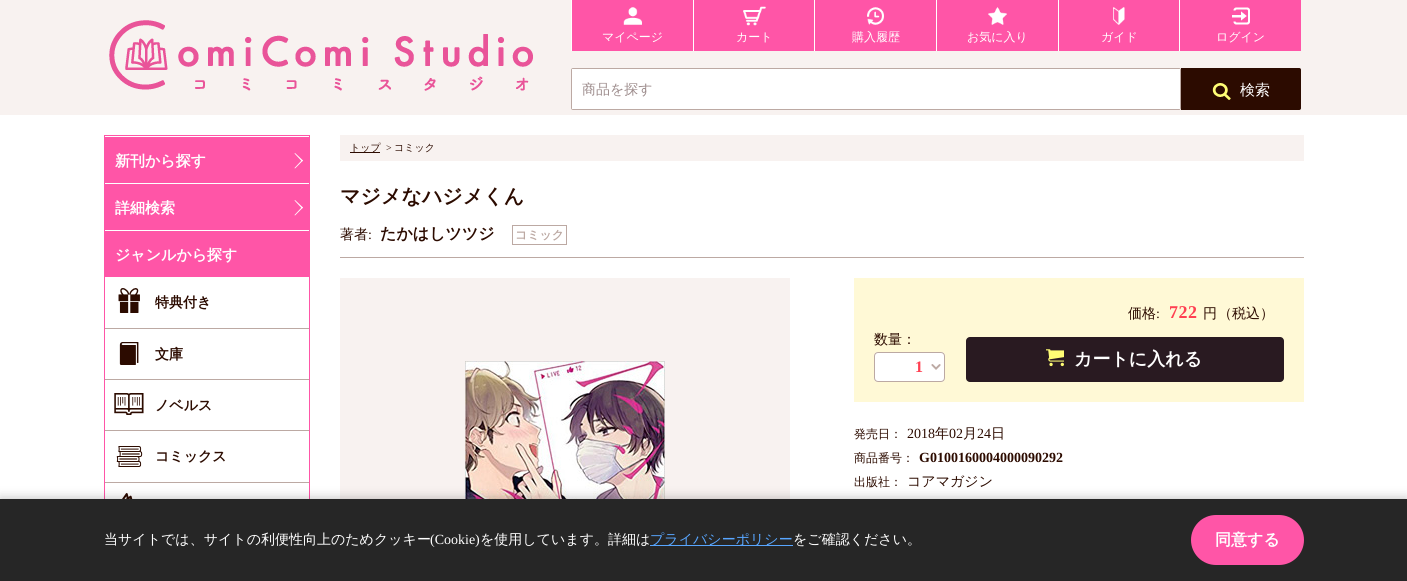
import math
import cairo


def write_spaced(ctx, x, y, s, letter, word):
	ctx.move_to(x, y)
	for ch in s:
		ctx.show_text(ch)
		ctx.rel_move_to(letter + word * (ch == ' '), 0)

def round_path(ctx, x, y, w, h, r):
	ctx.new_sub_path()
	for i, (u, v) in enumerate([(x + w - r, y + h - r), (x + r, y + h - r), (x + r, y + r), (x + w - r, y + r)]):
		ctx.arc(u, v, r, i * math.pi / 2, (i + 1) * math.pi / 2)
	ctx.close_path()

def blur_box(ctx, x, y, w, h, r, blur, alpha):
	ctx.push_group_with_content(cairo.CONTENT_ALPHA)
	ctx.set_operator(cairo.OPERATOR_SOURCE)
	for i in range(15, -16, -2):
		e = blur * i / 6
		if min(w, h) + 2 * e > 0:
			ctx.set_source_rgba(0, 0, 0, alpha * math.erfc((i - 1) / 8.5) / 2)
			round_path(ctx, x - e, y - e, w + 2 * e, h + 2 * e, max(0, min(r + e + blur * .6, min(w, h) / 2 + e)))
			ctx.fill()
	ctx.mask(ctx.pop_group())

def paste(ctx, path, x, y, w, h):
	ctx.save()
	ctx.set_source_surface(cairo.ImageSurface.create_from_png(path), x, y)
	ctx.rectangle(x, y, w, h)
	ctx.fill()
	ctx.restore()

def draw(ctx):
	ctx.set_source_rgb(1, 1, 1)
	ctx.paint()
	ctx.set_source_rgb(0.969, 0.949, 0.941)
	ctx.rectangle(0, 0, 1407, 115)
	ctx.fill()
	paste(ctx, 'media/1.png', 109, 20, 424, 71)
	ctx.set_source_rgb(1, 1, 1)
	ctx.rectangle(571, 0, 609, 51)
	ctx.fill()
	ctx.set_source_rgb(1, 0.333, 0.655)
	ctx.rectangle(572, 0, 121, 51)
	ctx.fill()
	paste(ctx, 'media/2.png', 623, 7, 19, 18)
	ctx.select_font_face('WenQuanYi Zen Hei Medium')
	ctx.set_font_size(12)
	ctx.set_source_rgb(1, 1, 1)
	ctx.move_to(602, 41)
	ctx.show_text('マイページ')
	ctx.set_source_rgb(1, 0.333, 0.655)
	ctx.rectangle(694, 0, 120, 51)
	ctx.fill()
	paste(ctx, 'media/3.png', 743, 6, 23, 20)
	ctx.set_source_rgb(1, 1, 1)
	ctx.move_to(736, 41)
	ctx.show_text('カート')
	ctx.set_source_rgb(1, 0.333, 0.655)
	ctx.rectangle(815, 0, 121, 51)
	ctx.fill()
	paste(ctx, 'media/4.png', 867, 7, 17, 18)
	ctx.set_source_rgb(1, 1, 1)
	ctx.move_to(852, 41)
	ctx.show_text('購入履歴')
	ctx.set_source_rgb(1, 0.333, 0.655)
	ctx.rectangle(937, 0, 121, 51)
	ctx.fill()
	paste(ctx, 'media/5.png', 988, 7, 19, 18)
	ctx.set_source_rgb(1, 1, 1)
	ctx.move_to(967, 41)
	ctx.show_text('お気に入り')
	ctx.set_source_rgb(1, 0.333, 0.655)
	ctx.rectangle(1059, 0, 120, 51)
	ctx.fill()
	paste(ctx, 'media/6.png', 1113, 7, 12, 18)
	ctx.set_source_rgb(1, 1, 1)
	ctx.move_to(1101, 41)
	ctx.show_text('ガイド')
	ctx.set_source_rgb(1, 0.333, 0.655)
	ctx.rectangle(1180, 0, 121, 51)
	ctx.fill()
	paste(ctx, 'media/7.png', 1232, 7, 18, 18)
	ctx.set_source_rgb(1, 1, 1)
	ctx.move_to(1216, 41)
	ctx.show_text('ログイン')
	round_path(ctx, 571.5, 68.5, 609, 41, 1.5)
	ctx.set_source_rgb(0.737, 0.663, 0.639)
	ctx.set_line_width(1)
	ctx.stroke()
	ctx.set_source_rgb(1, 1, 1)
	ctx.rectangle(572, 69, 608, 40)
	ctx.fill()
	ctx.set_font_size(14)
	ctx.set_source_rgb(0.612, 0.545, 0.545)
	ctx.move_to(582, 94)
	ctx.show_text('商品を探す')
	ctx.set_source_rgb(0.173, 0.043, 0)
	ctx.new_path()
	ctx.move_to(1181.5, 68.5)
	ctx.line_to(1299, 68.5)
	ctx.curve_to(1300, 68.5, 1300.5, 69, 1300.5, 70)
	ctx.line_to(1300.5, 108)
	ctx.curve_to(1300.5, 109, 1300, 109.5, 1299, 109.5)
	ctx.line_to(1181.5, 109.5)
	ctx.close_path()
	ctx.fill_preserve()
	ctx.stroke()
	paste(ctx, 'media/8.png', 1212, 83, 19, 17)
	ctx.set_font_size(15)
	ctx.set_source_rgb(1, 1, 1)
	ctx.move_to(1240, 95)
	ctx.show_text('検索')
	ctx.rectangle(104.5, 135.5, 205, 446)
	ctx.set_source_rgb(1, 0.333, 0.655)
	ctx.stroke()
	ctx.rectangle(105, 137, 204, 46)
	ctx.fill()
	ctx.select_font_face('WenQuanYi Zen Hei', cairo.FONT_SLANT_NORMAL, cairo.FONT_WEIGHT_BOLD)
	ctx.set_source_rgb(1, 1, 1)
	ctx.move_to(115, 166)
	ctx.show_text('新刊から探す')
	ctx.new_path()
	ctx.move_to(295, 153)
	ctx.line_to(303, 160.5)
	ctx.line_to(302, 161.5)
	ctx.line_to(294.5, 153.5)
	ctx.close_path()
	ctx.fill()
	ctx.new_path()
	ctx.move_to(302, 160)
	ctx.line_to(303, 160.5)
	ctx.line_to(295, 168.5)
	ctx.line_to(294.5, 168)
	ctx.close_path()
	ctx.fill()
	ctx.set_source_rgb(1, 0.333, 0.655)
	ctx.rectangle(105, 184, 204, 46)
	ctx.fill()
	ctx.set_source_rgb(1, 1, 1)
	ctx.move_to(115, 213)
	ctx.show_text('詳細検索')
	ctx.new_path()
	ctx.move_to(295, 200)
	ctx.line_to(303, 207.5)
	ctx.line_to(302, 208.5)
	ctx.line_to(294.5, 200.5)
	ctx.close_path()
	ctx.fill()
	ctx.new_path()
	ctx.move_to(302, 207)
	ctx.line_to(303, 207.5)
	ctx.line_to(295, 215.5)
	ctx.line_to(294.5, 215)
	ctx.close_path()
	ctx.fill()
	ctx.set_source_rgb(1, 0.333, 0.655)
	ctx.rectangle(105, 231, 204, 46)
	ctx.fill()
	ctx.set_source_rgb(1, 1, 1)
	ctx.move_to(115, 260)
	ctx.show_text('ジャンルから探す')
	ctx.set_source_rgb(0.737, 0.663, 0.639)
	ctx.rectangle(105, 328, 204, 1)
	ctx.fill()
	paste(ctx, 'media/9.png', 118, 288, 22, 25)
	ctx.set_font_size(14)
	ctx.set_source_rgb(0.173, 0.043, 0)
	ctx.move_to(155, 307)
	ctx.show_text('特典付き')
	ctx.set_source_rgb(0.737, 0.663, 0.639)
	ctx.rectangle(105, 379, 204, 1)
	ctx.fill()
	paste(ctx, 'media/10.png', 119, 342, 20, 23)
	ctx.set_source_rgb(0.173, 0.043, 0)
	ctx.move_to(155, 359)
	ctx.show_text('文庫')
	ctx.set_source_rgb(0.737, 0.663, 0.639)
	ctx.rectangle(105, 430, 204, 1)
	ctx.fill()
	paste(ctx, 'media/11.png', 114, 393, 30, 22)
	ctx.set_source_rgb(0.173, 0.043, 0)
	ctx.move_to(155, 410)
	ctx.show_text('ノベルス')
	ctx.set_source_rgb(0.737, 0.663, 0.639)
	ctx.rectangle(105, 482, 204, 1)
	ctx.fill()
	paste(ctx, 'media/12.png', 116, 446, 27, 21)
	ctx.set_source_rgb(0.173, 0.043, 0)
	ctx.move_to(155, 461)
	ctx.show_text('コミックス')
	paste(ctx, 'media/13.png', 122, 493, 11, 6)
	ctx.set_source_rgb(0.969, 0.949, 0.941)
	ctx.rectangle(340, 135, 964, 26)
	ctx.fill()
	ctx.set_source_rgb(0.173, 0.043, 0)
	ctx.rectangle(350, 152, 30, 1)
	ctx.fill()
	ctx.select_font_face('WenQuanYi Zen Hei Medium')
	ctx.set_font_size(10)
	ctx.move_to(350, 151)
	ctx.show_text('トップ')
	ctx.select_font_face('Liberation Serif')
	ctx.move_to(386, 151)
	ctx.show_text('>')
	ctx.select_font_face('WenQuanYi Zen Hei Medium')
	ctx.move_to(394, 151)
	ctx.show_text('コミック')
	ctx.set_source_rgb(0.737, 0.663, 0.639)
	ctx.rectangle(340, 257, 964, 1)
	ctx.fill()
	ctx.select_font_face('WenQuanYi Zen Hei', cairo.FONT_SLANT_NORMAL, cairo.FONT_WEIGHT_BOLD)
	ctx.set_font_size(20)
	ctx.set_source_rgb(0.173, 0.043, 0)
	ctx.move_to(340, 203)
	ctx.show_text('マジメなハジメくん')
	ctx.select_font_face('WenQuanYi Zen Hei Medium')
	ctx.set_font_size(14)
	ctx.move_to(340, 239)
	ctx.show_text('著者')
	ctx.select_font_face('Liberation Serif')
	ctx.move_to(368, 239)
	ctx.show_text(':')
	ctx.select_font_face('WenQuanYi Zen Hei', cairo.FONT_SLANT_NORMAL, cairo.FONT_WEIGHT_BOLD)
	ctx.set_font_size(16)
	ctx.move_to(380, 239)
	ctx.show_text('たかはしツツジ')
	ctx.rectangle(512.5, 225.5, 54, 19)
	ctx.set_source_rgb(0.737, 0.663, 0.639)
	ctx.stroke()
	ctx.set_font_size(12)
	ctx.move_to(515, 239)
	ctx.show_text('コミック')
	ctx.set_source_rgb(0.969, 0.949, 0.941)
	ctx.rectangle(340, 278, 450, 221)
	ctx.fill()
	paste(ctx, 'media/14.png', 465, 361, 200, 138)
	ctx.set_source_rgb(1, 0.976, 0.839)
	ctx.rectangle(854, 278, 450, 124)
	ctx.fill()
	ctx.select_font_face('WenQuanYi Zen Hei Medium')
	ctx.set_font_size(14)
	ctx.set_source_rgb(0.173, 0.043, 0)
	ctx.move_to(1128, 318)
	ctx.show_text('価格')
	ctx.select_font_face('Liberation Serif')
	ctx.move_to(1156, 318)
	ctx.show_text(':')
	ctx.select_font_face('Liberation Serif', cairo.FONT_SLANT_NORMAL, cairo.FONT_WEIGHT_BOLD)
	ctx.set_font_size(18)
	ctx.set_source_rgb(1, 0.247, 0.318)
	write_spaced(ctx, 1169, 318, '722', 0.5, 0)
	ctx.select_font_face('WenQuanYi Zen Hei Medium')
	ctx.set_font_size(14)
	ctx.set_source_rgb(0.173, 0.043, 0)
	write_spaced(ctx, 1203, 318, '円', 0.5, 0)
	ctx.move_to(1218, 318)
	ctx.show_text('（税込）')
	ctx.move_to(874, 344)
	ctx.show_text('数量：')
	ctx.set_source_rgb(1, 1, 1)
	round_path(ctx, 874, 352, 71, 30, 4)
	ctx.fill()
	paste(ctx, 'media/15.png', 931, 364, 10, 6)
	round_path(ctx, 874.5, 352.5, 70, 29, 3.5)
	ctx.set_source_rgb(0.737, 0.663, 0.639)
	ctx.stroke()
	ctx.select_font_face('Liberation Serif', cairo.FONT_SLANT_NORMAL, cairo.FONT_WEIGHT_BOLD)
	ctx.set_font_size(16)
	ctx.set_source_rgb(1, 0.247, 0.318)
	write_spaced(ctx, 915, 372, '1', 0.5, 0)
	ctx.set_source_rgb(0.161, 0.102, 0.129)
	round_path(ctx, 966, 337, 318, 45, 4)
	ctx.fill()
	paste(ctx, 'media/16.png', 1046, 349, 18, 18)
	ctx.select_font_face('WenQuanYi Zen Hei', cairo.FONT_SLANT_NORMAL, cairo.FONT_WEIGHT_BOLD)
	ctx.set_font_size(18)
	ctx.set_source_rgb(1, 1, 1)
	ctx.move_to(1074, 365)
	ctx.show_text('カートに入れる')
	ctx.select_font_face('WenQuanYi Zen Hei Medium')
	ctx.set_font_size(12)
	ctx.set_source_rgb(0.173, 0.043, 0)
	ctx.move_to(854, 438)
	ctx.show_text('発売日：')
	ctx.select_font_face('Liberation Serif')
	ctx.set_font_size(14)
	ctx.move_to(907, 438)
	ctx.show_text('2018')
	ctx.select_font_face('WenQuanYi Zen Hei Medium')
	ctx.move_to(935, 438)
	ctx.show_text('年')
	ctx.select_font_face('Liberation Serif')
	ctx.move_to(949, 438)
	ctx.show_text('02')
	ctx.select_font_face('WenQuanYi Zen Hei Medium')
	ctx.move_to(963, 438)
	ctx.show_text('月')
	ctx.select_font_face('Liberation Serif')
	ctx.move_to(977, 438)
	ctx.show_text('24')
	ctx.select_font_face('WenQuanYi Zen Hei Medium')
	ctx.move_to(991, 438)
	ctx.show_text('日')
	ctx.set_font_size(12)
	ctx.move_to(854, 462)
	ctx.show_text('商品番号：')
	ctx.select_font_face('Liberation Serif', cairo.FONT_SLANT_NORMAL, cairo.FONT_WEIGHT_BOLD)
	ctx.set_font_size(14)
	ctx.move_to(919, 462)
	ctx.show_text('G0100160004000090292')
	ctx.select_font_face('WenQuanYi Zen Hei Medium')
	ctx.set_font_size(12)
	ctx.move_to(854, 486)
	ctx.show_text('出版社：')
	ctx.set_font_size(14)
	ctx.move_to(907, 486)
	ctx.show_text('コアマガジン')
	ctx.set_source_rgb(0, 0, 0)
	blur_box(ctx, 0, 497, 1407, 82, 0, 5, 0.2)
	ctx.set_source_rgb(0.149, 0.149, 0.149)
	ctx.rectangle(0, 499, 1407, 82)
	ctx.fill()
	ctx.set_source_rgb(1, 1, 1)
	ctx.move_to(104, 544)
	ctx.show_text('当サイトでは、サイトの利便性向上のためクッキー')
	ctx.select_font_face('Liberation Serif')
	ctx.move_to(430, 544)
	ctx.show_text('(Cookie)')
	ctx.select_font_face('WenQuanYi Zen Hei Medium')
	ctx.move_to(480, 544)
	ctx.show_text('を使用しています。詳細は')
	ctx.set_source_rgb(0.345, 0.651, 1)
	ctx.rectangle(650, 545, 143, 1)
	ctx.fill()
	ctx.move_to(650, 544)
	ctx.show_text('プライバシーポリシー')
	ctx.set_source_rgb(1, 1, 1)
	ctx.move_to(793, 544)
	ctx.show_text('をご確認ください。')
	ctx.set_source_rgb(1, 0.333, 0.655)
	round_path(ctx, 1191, 515, 113, 50, 25)
	ctx.fill()
	ctx.select_font_face('WenQuanYi Zen Hei', cairo.FONT_SLANT_NORMAL, cairo.FONT_WEIGHT_BOLD)
	ctx.set_font_size(16)
	ctx.set_source_rgb(1, 1, 1)
	ctx.move_to(1215, 545)
	ctx.show_text('同意する')


surface = cairo.ImageSurface(cairo.FORMAT_RGB24, 1407, 581)
ctx = cairo.Context(surface)
options = cairo.FontOptions()
options.set_hint_metrics(cairo.HINT_METRICS_OFF)
options.set_hint_style(cairo.HINT_STYLE_NONE)
ctx.set_font_options(options)
ctx.set_miter_limit(4)
draw(ctx)
surface.write_to_png('image.png')
